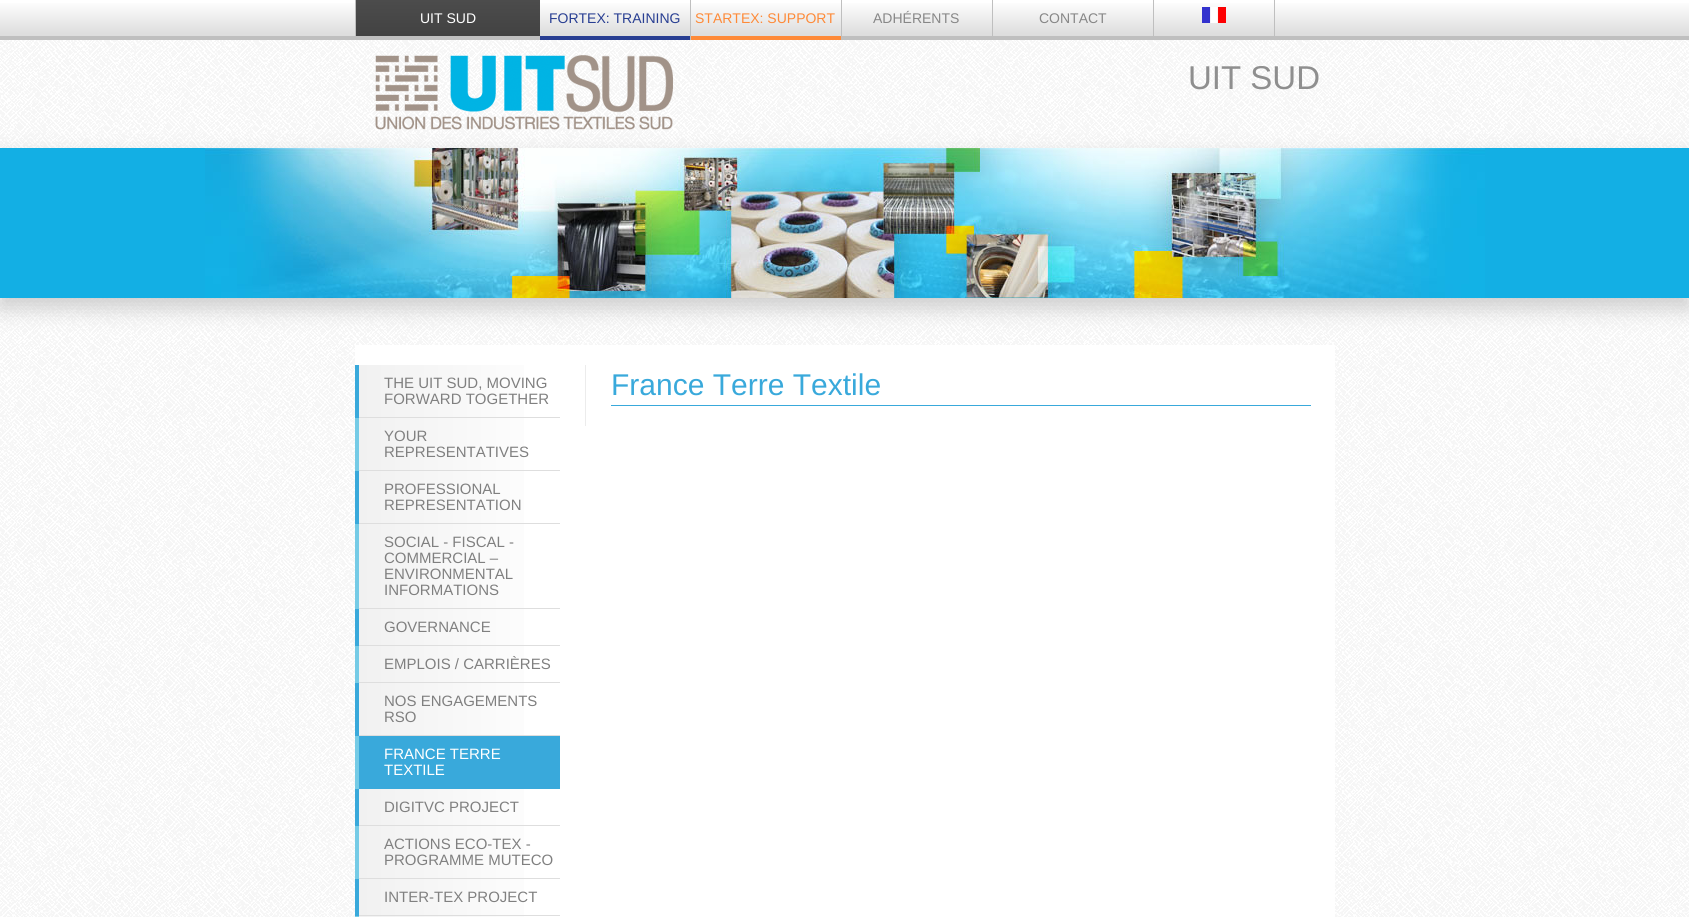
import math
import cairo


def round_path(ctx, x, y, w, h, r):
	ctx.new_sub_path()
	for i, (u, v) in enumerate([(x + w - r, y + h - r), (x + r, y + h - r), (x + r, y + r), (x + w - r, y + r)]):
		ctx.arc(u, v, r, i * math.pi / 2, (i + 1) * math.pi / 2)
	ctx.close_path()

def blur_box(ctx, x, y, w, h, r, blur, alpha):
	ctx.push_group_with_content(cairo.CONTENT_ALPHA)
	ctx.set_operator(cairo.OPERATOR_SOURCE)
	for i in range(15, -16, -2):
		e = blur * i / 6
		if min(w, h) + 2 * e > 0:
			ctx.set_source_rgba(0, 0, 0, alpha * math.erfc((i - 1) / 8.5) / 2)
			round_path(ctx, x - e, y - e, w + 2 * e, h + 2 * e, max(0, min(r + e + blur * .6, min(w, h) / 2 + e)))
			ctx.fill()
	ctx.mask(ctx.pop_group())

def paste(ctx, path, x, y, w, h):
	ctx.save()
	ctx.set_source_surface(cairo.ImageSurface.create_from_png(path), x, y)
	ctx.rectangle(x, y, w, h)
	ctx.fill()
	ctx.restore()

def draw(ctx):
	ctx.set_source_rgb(1, 1, 1)
	ctx.paint()
	paste(ctx, 'media/1.png', 0, 40, 1689, 877)
	gradient = cairo.LinearGradient(845, 0, 845, 36)
	gradient.add_color_stop_rgba(0, 1, 1, 1, 1)
	gradient.add_color_stop_rgba(1, 0.863, 0.863, 0.863, 1)
	ctx.set_source(gradient)
	ctx.rectangle(0, 3, 1689, 33)
	ctx.fill()
	ctx.set_source_rgb(0.749, 0.749, 0.749)
	ctx.rectangle(0, 36, 1689, 4)
	ctx.fill()
	ctx.rectangle(355, 0, 1, 36)
	ctx.fill()
	gradient = cairo.LinearGradient(448, 0, 448, 36)
	gradient.add_color_stop_rgba(0, 0.298, 0.298, 0.298, 1)
	gradient.add_color_stop_rgba(1, 0.259, 0.259, 0.259, 1)
	ctx.set_source(gradient)
	ctx.rectangle(356, 0, 184, 36)
	ctx.fill()
	ctx.select_font_face('Liberation Sans')
	ctx.set_font_size(14)
	ctx.set_source_rgb(1, 1, 1)
	ctx.move_to(420, 23)
	ctx.show_text('UIT SUD')
	ctx.set_source_rgb(0.749, 0.749, 0.749)
	ctx.rectangle(690, 0, 1, 40)
	ctx.fill()
	ctx.set_source_rgb(0.157, 0.243, 0.573)
	ctx.rectangle(540, 36, 150, 4)
	ctx.fill()
	ctx.move_to(549, 23)
	ctx.show_text('FORTEX: TRAINING')
	ctx.set_source_rgb(0.749, 0.749, 0.749)
	ctx.rectangle(841, 0, 1, 40)
	ctx.fill()
	ctx.set_source_rgb(0.996, 0.541, 0.22)
	ctx.rectangle(691, 36, 150, 4)
	ctx.fill()
	ctx.move_to(695, 23)
	ctx.show_text('STARTEX: SUPPORT')
	ctx.set_source_rgb(0.749, 0.749, 0.749)
	ctx.rectangle(992, 0, 1, 36)
	ctx.fill()
	ctx.set_source_rgb(0.529, 0.529, 0.529)
	ctx.move_to(873, 23)
	ctx.show_text('ADHÉRENTS')
	ctx.set_source_rgb(0.749, 0.749, 0.749)
	ctx.rectangle(1153, 0, 1, 36)
	ctx.fill()
	ctx.set_source_rgb(0.529, 0.529, 0.529)
	ctx.move_to(1039, 23)
	ctx.show_text('CONTACT')
	ctx.set_source_rgb(0.749, 0.749, 0.749)
	ctx.rectangle(1274, 0, 1, 36)
	ctx.fill()
	paste(ctx, 'media/2.png', 1202, 7, 24, 16)
	ctx.set_source_rgb(0.8, 0.8, 0.8)
	blur_box(ctx, 0, 158, 1689, 150, 0, 11, 1)
	paste(ctx, 'media/3.png', 375, 55, 298, 75)
	ctx.set_font_size(33)
	ctx.set_source_rgb(0.561, 0.561, 0.561)
	ctx.move_to(1188, 89)
	ctx.show_text('UIT SUD')
	ctx.set_source_rgb(0.075, 0.686, 0.894)
	ctx.rectangle(0, 148, 1689, 150)
	ctx.fill()
	paste(ctx, 'media/4.png', 205, 148, 1280, 150)
	ctx.set_source_rgb(1, 1, 1)
	ctx.rectangle(355, 345, 980, 572)
	ctx.fill()
	ctx.set_source_rgb(0.224, 0.663, 0.859)
	ctx.rectangle(355, 365, 4, 53)
	ctx.fill()
	gradient = cairo.LinearGradient(359, 391, 560, 391)
	gradient.add_color_stop_rgba(0, 0.945, 0.945, 0.945, 1)
	gradient.add_color_stop_rgba(1, 1, 1, 1, 1)
	ctx.set_source(gradient)
	ctx.rectangle(359, 365, 165, 52)
	ctx.fill()
	ctx.set_source_rgb(0.871, 0.871, 0.871)
	ctx.rectangle(359, 417, 201, 1)
	ctx.fill()
	ctx.set_font_size(15)
	ctx.set_source_rgb(0.502, 0.502, 0.502)
	ctx.move_to(384, 388)
	ctx.show_text('THE UIT SUD, MOVING')
	ctx.move_to(384, 404)
	ctx.show_text('FORWARD TOGETHER')
	ctx.set_source_rgb(0.459, 0.796, 0.902)
	ctx.rectangle(355, 418, 4, 53)
	ctx.fill()
	gradient = cairo.LinearGradient(359, 444, 560, 444)
	gradient.add_color_stop_rgba(0, 0.945, 0.945, 0.945, 1)
	gradient.add_color_stop_rgba(1, 1, 1, 1, 1)
	ctx.set_source(gradient)
	ctx.rectangle(359, 418, 165, 52)
	ctx.fill()
	ctx.set_source_rgb(0.871, 0.871, 0.871)
	ctx.rectangle(359, 470, 201, 1)
	ctx.fill()
	ctx.set_source_rgb(0.502, 0.502, 0.502)
	ctx.move_to(384, 441)
	ctx.show_text('YOUR')
	ctx.move_to(384, 457)
	ctx.show_text('REPRESENTATIVES')
	ctx.set_source_rgb(0.224, 0.663, 0.859)
	ctx.rectangle(355, 471, 4, 53)
	ctx.fill()
	gradient = cairo.LinearGradient(359, 497, 560, 497)
	gradient.add_color_stop_rgba(0, 0.945, 0.945, 0.945, 1)
	gradient.add_color_stop_rgba(1, 1, 1, 1, 1)
	ctx.set_source(gradient)
	ctx.rectangle(359, 471, 165, 52)
	ctx.fill()
	ctx.set_source_rgb(0.871, 0.871, 0.871)
	ctx.rectangle(359, 523, 201, 1)
	ctx.fill()
	ctx.set_source_rgb(0.502, 0.502, 0.502)
	ctx.move_to(384, 494)
	ctx.show_text('PROFESSIONAL')
	ctx.move_to(384, 510)
	ctx.show_text('REPRESENTATION')
	ctx.set_source_rgb(0.459, 0.796, 0.902)
	ctx.rectangle(355, 524, 4, 85)
	ctx.fill()
	gradient = cairo.LinearGradient(359, 566, 560, 566)
	gradient.add_color_stop_rgba(0, 0.945, 0.945, 0.945, 1)
	gradient.add_color_stop_rgba(1, 1, 1, 1, 1)
	ctx.set_source(gradient)
	ctx.rectangle(359, 524, 165, 84)
	ctx.fill()
	ctx.set_source_rgb(0.871, 0.871, 0.871)
	ctx.rectangle(359, 608, 201, 1)
	ctx.fill()
	ctx.set_source_rgb(0.502, 0.502, 0.502)
	for x, y, s in [
		(384, 547, 'SOCIAL - FISCAL -'),
		(384, 563, 'COMMERCIAL –'),
		(384, 579, 'ENVIRONMENTAL'),
		(384, 595, 'INFORMATIONS'),
	]:
		ctx.move_to(x, y)
		ctx.show_text(s)
	ctx.set_source_rgb(0.224, 0.663, 0.859)
	ctx.rectangle(355, 609, 4, 37)
	ctx.fill()
	gradient = cairo.LinearGradient(359, 627, 560, 627)
	gradient.add_color_stop_rgba(0, 0.945, 0.945, 0.945, 1)
	gradient.add_color_stop_rgba(1, 1, 1, 1, 1)
	ctx.set_source(gradient)
	ctx.rectangle(359, 609, 165, 36)
	ctx.fill()
	ctx.set_source_rgb(0.871, 0.871, 0.871)
	ctx.rectangle(359, 645, 201, 1)
	ctx.fill()
	ctx.set_source_rgb(0.502, 0.502, 0.502)
	ctx.move_to(384, 632)
	ctx.show_text('GOVERNANCE')
	ctx.set_source_rgb(0.459, 0.796, 0.902)
	ctx.rectangle(355, 646, 4, 37)
	ctx.fill()
	gradient = cairo.LinearGradient(359, 664, 560, 664)
	gradient.add_color_stop_rgba(0, 0.945, 0.945, 0.945, 1)
	gradient.add_color_stop_rgba(1, 1, 1, 1, 1)
	ctx.set_source(gradient)
	ctx.rectangle(359, 646, 165, 36)
	ctx.fill()
	ctx.set_source_rgb(0.871, 0.871, 0.871)
	ctx.rectangle(359, 682, 201, 1)
	ctx.fill()
	ctx.set_source_rgb(0.502, 0.502, 0.502)
	ctx.move_to(384, 669)
	ctx.show_text('EMPLOIS / CARRIÈRES')
	ctx.set_source_rgb(0.224, 0.663, 0.859)
	ctx.rectangle(355, 683, 4, 53)
	ctx.fill()
	gradient = cairo.LinearGradient(359, 709, 560, 709)
	gradient.add_color_stop_rgba(0, 0.945, 0.945, 0.945, 1)
	gradient.add_color_stop_rgba(1, 1, 1, 1, 1)
	ctx.set_source(gradient)
	ctx.rectangle(359, 683, 165, 52)
	ctx.fill()
	ctx.set_source_rgb(0.871, 0.871, 0.871)
	ctx.rectangle(359, 735, 201, 1)
	ctx.fill()
	ctx.set_source_rgb(0.502, 0.502, 0.502)
	ctx.move_to(384, 706)
	ctx.show_text('NOS ENGAGEMENTS')
	ctx.move_to(384, 722)
	ctx.show_text('RSO')
	ctx.set_source_rgb(0.459, 0.796, 0.902)
	ctx.rectangle(355, 736, 4, 53)
	ctx.fill()
	ctx.set_source_rgb(0.224, 0.663, 0.859)
	ctx.rectangle(359, 736, 201, 53)
	ctx.fill()
	ctx.set_source_rgb(1, 1, 1)
	ctx.move_to(384, 759)
	ctx.show_text('FRANCE TERRE')
	ctx.move_to(384, 775)
	ctx.show_text('TEXTILE')
	ctx.set_source_rgb(0.224, 0.663, 0.859)
	ctx.rectangle(355, 789, 4, 37)
	ctx.fill()
	gradient = cairo.LinearGradient(359, 807, 560, 807)
	gradient.add_color_stop_rgba(0, 0.945, 0.945, 0.945, 1)
	gradient.add_color_stop_rgba(1, 1, 1, 1, 1)
	ctx.set_source(gradient)
	ctx.rectangle(359, 789, 165, 36)
	ctx.fill()
	ctx.set_source_rgb(0.871, 0.871, 0.871)
	ctx.rectangle(359, 825, 201, 1)
	ctx.fill()
	ctx.set_source_rgb(0.502, 0.502, 0.502)
	ctx.move_to(384, 812)
	ctx.show_text('DIGITVC PROJECT')
	ctx.set_source_rgb(0.459, 0.796, 0.902)
	ctx.rectangle(355, 826, 4, 53)
	ctx.fill()
	gradient = cairo.LinearGradient(359, 852, 560, 852)
	gradient.add_color_stop_rgba(0, 0.945, 0.945, 0.945, 1)
	gradient.add_color_stop_rgba(1, 1, 1, 1, 1)
	ctx.set_source(gradient)
	ctx.rectangle(359, 826, 165, 52)
	ctx.fill()
	ctx.set_source_rgb(0.871, 0.871, 0.871)
	ctx.rectangle(359, 878, 201, 1)
	ctx.fill()
	ctx.set_source_rgb(0.502, 0.502, 0.502)
	ctx.move_to(384, 849)
	ctx.show_text('ACTIONS ECO-TEX -')
	ctx.move_to(384, 865)
	ctx.show_text('PROGRAMME MUTECO')
	ctx.set_source_rgb(0.224, 0.663, 0.859)
	ctx.rectangle(355, 879, 4, 37)
	ctx.fill()
	gradient = cairo.LinearGradient(359, 897, 560, 897)
	gradient.add_color_stop_rgba(0, 0.945, 0.945, 0.945, 1)
	gradient.add_color_stop_rgba(1, 1, 1, 1, 1)
	ctx.set_source(gradient)
	ctx.rectangle(359, 879, 165, 36)
	ctx.fill()
	ctx.set_source_rgb(0.871, 0.871, 0.871)
	ctx.rectangle(359, 915, 201, 1)
	ctx.fill()
	ctx.set_source_rgb(0.502, 0.502, 0.502)
	ctx.move_to(384, 902)
	ctx.show_text('INTER-TEX PROJECT')
	ctx.set_source_rgb(0.459, 0.796, 0.902)
	ctx.rectangle(355, 916, 4, 1)
	ctx.fill()
	gradient = cairo.LinearGradient(359, 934, 560, 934)
	gradient.add_color_stop_rgba(0, 0.945, 0.945, 0.945, 1)
	gradient.add_color_stop_rgba(1, 1, 1, 1, 1)
	ctx.set_source(gradient)
	ctx.rectangle(359, 916, 165, 1)
	ctx.fill()
	ctx.set_source_rgb(0.922, 0.922, 0.922)
	ctx.rectangle(585, 365, 1, 61)
	ctx.fill()
	ctx.set_source_rgb(0.224, 0.663, 0.859)
	ctx.rectangle(611, 405, 700, 1)
	ctx.fill()
	ctx.set_font_size(30)
	ctx.move_to(611, 395)
	ctx.show_text('France Terre Textile')


surface = cairo.ImageSurface(cairo.FORMAT_RGB24, 1689, 917)
ctx = cairo.Context(surface)
options = cairo.FontOptions()
options.set_hint_metrics(cairo.HINT_METRICS_OFF)
options.set_hint_style(cairo.HINT_STYLE_NONE)
ctx.set_font_options(options)
ctx.set_miter_limit(4)
draw(ctx)
surface.write_to_png('image.png')
